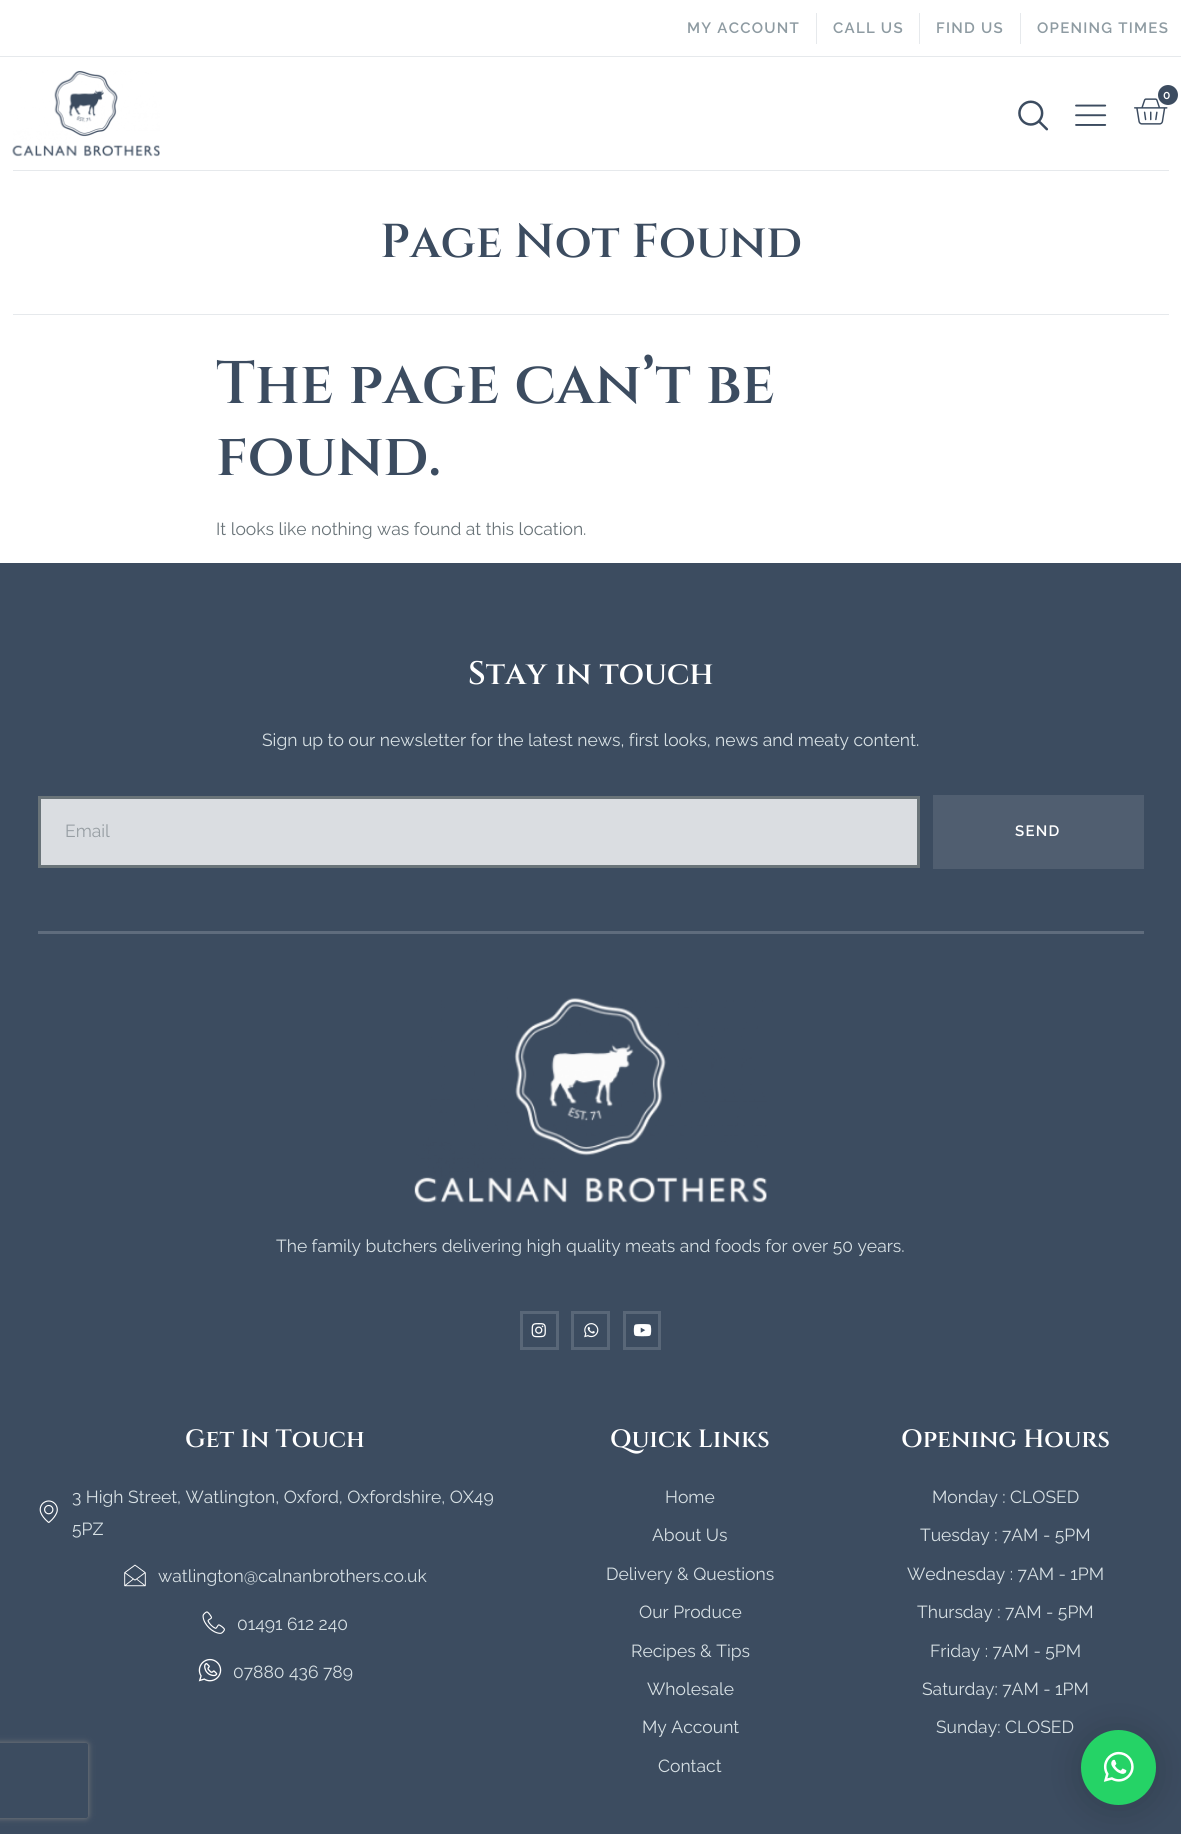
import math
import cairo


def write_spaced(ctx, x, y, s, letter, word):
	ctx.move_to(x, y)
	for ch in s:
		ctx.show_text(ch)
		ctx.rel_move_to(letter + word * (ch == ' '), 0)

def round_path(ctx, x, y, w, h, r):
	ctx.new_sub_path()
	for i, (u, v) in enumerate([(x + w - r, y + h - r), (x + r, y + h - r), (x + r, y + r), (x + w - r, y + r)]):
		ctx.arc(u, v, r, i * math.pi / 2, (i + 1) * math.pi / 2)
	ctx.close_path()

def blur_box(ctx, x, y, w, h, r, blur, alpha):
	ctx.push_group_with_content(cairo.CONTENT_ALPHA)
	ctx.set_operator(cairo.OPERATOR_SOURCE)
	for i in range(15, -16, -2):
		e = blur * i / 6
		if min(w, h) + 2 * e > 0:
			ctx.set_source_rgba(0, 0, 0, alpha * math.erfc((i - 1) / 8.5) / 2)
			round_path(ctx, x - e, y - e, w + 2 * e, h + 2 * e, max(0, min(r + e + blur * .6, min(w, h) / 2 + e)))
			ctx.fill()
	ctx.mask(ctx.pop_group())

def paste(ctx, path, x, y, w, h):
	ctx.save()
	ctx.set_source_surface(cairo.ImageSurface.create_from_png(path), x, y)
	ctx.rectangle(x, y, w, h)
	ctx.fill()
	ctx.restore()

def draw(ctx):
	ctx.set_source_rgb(1, 1, 1)
	ctx.paint()
	ctx.set_source_rgb(0.902, 0.914, 0.922)
	ctx.rectangle(0, 56, 1181, 1)
	ctx.fill()
	ctx.select_font_face('Raleway SemiBold')
	ctx.set_font_size(15)
	ctx.set_source_rgb(0.557, 0.608, 0.635)
	write_spaced(ctx, 687, 33, 'MY ACCOUNT', 1.25, 0)
	ctx.set_source_rgb(0.902, 0.914, 0.922)
	ctx.rectangle(816, 13, 1, 31)
	ctx.fill()
	ctx.set_source_rgb(0.557, 0.608, 0.635)
	write_spaced(ctx, 833, 33, 'CALL US', 1.25, 0)
	ctx.set_source_rgb(0.902, 0.914, 0.922)
	ctx.rectangle(919, 13, 1, 31)
	ctx.fill()
	ctx.set_source_rgb(0.557, 0.608, 0.635)
	write_spaced(ctx, 936, 33, 'FIND US', 1.25, 0)
	ctx.set_source_rgb(0.902, 0.914, 0.922)
	ctx.rectangle(1020, 13, 1, 31)
	ctx.fill()
	ctx.set_source_rgb(0.557, 0.608, 0.635)
	write_spaced(ctx, 1037, 33, 'OPENING TIMES', 1.25, 0)
	paste(ctx, 'media/1.png', 12, 70, 148, 87)
	paste(ctx, 'media/2.png', 1134, 98, 34, 27)
	ctx.set_source_rgb(0.235, 0.298, 0.376)
	ctx.arc(1168, 95, 10, 0, 2 * math.pi)
	ctx.fill()
	ctx.set_font_size(12)
	ctx.set_source_rgb(1, 1, 1)
	write_spaced(ctx, 1163, 99, '0', 1.25, 0)
	paste(ctx, 'media/3.png', 1018, 100, 31, 31)
	paste(ctx, 'media/4.png', 1075, 104, 32, 22)
	ctx.set_source_rgb(0.902, 0.914, 0.922)
	ctx.rectangle(13, 170, 1156, 1)
	ctx.fill()
	ctx.rectangle(13, 314, 1156, 1)
	ctx.fill()
	ctx.select_font_face('Cinzel SemiBold')
	ctx.set_font_size(47.5)
	ctx.set_source_rgb(0.235, 0.298, 0.376)
	ctx.move_to(380, 257)
	ctx.show_text('Page Not Found')
	ctx.set_font_size(60)
	ctx.move_to(216, 403)
	ctx.show_text('The page can’t be')
	ctx.move_to(216, 475)
	ctx.show_text('found.')
	ctx.select_font_face('Raleway')
	ctx.set_font_size(17.5)
	ctx.set_source_rgb(0.416, 0.455, 0.475)
	ctx.move_to(216, 535)
	ctx.show_text('It looks like nothing was found at this location.')
	ctx.set_source_rgb(0.235, 0.298, 0.376)
	ctx.rectangle(0, 563, 1181, 1271)
	ctx.fill()
	ctx.set_source_rgb(0.373, 0.424, 0.49)
	ctx.rectangle(38, 931, 1106, 3)
	ctx.fill()
	ctx.select_font_face('Cinzel SemiBold')
	ctx.set_font_size(32.5)
	ctx.set_source_rgb(1, 1, 1)
	ctx.move_to(468, 684)
	ctx.show_text('Stay in touch')
	ctx.select_font_face('Raleway')
	ctx.set_font_size(17.5)
	ctx.set_source_rgb(0.843, 0.878, 0.894)
	ctx.move_to(262, 746)
	ctx.show_text('Sign up to our newsletter for the latest news, first looks, news and meaty content.')
	ctx.set_source_rgb(0.855, 0.867, 0.882)
	ctx.rectangle(39.5, 797.5, 879, 69)
	ctx.fill_preserve()
	ctx.set_source_rgb(0.416, 0.455, 0.475)
	ctx.set_line_width(3)
	ctx.stroke()
	ctx.set_source_rgb(0.592, 0.62, 0.639)
	ctx.move_to(65, 837)
	ctx.show_text('Email')
	ctx.set_source_rgb(0.314, 0.369, 0.439)
	ctx.rectangle(933, 795, 211, 74)
	ctx.fill()
	ctx.select_font_face('Raleway SemiBold')
	ctx.set_font_size(15)
	ctx.set_source_rgb(1, 1, 1)
	write_spaced(ctx, 1015, 836, 'SEND', 1.25, 0)
	ctx.save()
	ctx.set_fill_rule(cairo.FILL_RULE_EVEN_ODD)
	ctx.new_path()
	ctx.move_to(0, 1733)
	ctx.line_to(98, 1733)
	ctx.line_to(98, 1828)
	ctx.line_to(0, 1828)
	ctx.close_path()
	ctx.move_to(-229.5, 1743)
	ctx.line_to(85.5, 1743)
	ctx.curve_to(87, 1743, 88, 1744, 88, 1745.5)
	ctx.line_to(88, 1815.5)
	ctx.curve_to(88, 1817, 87, 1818, 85.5, 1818)
	ctx.line_to(-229.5, 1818)
	ctx.curve_to(-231, 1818, -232, 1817, -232, 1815.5)
	ctx.line_to(-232, 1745.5)
	ctx.curve_to(-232, 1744, -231, 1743, -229.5, 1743)
	ctx.close_path()
	ctx.clip()
	ctx.set_source_rgb(0.502, 0.502, 0.502)
	blur_box(ctx, -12, 1743, 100, 75, 2.5, 3, 1)
	ctx.restore()
	paste(ctx, 'media/5.png', 414, 997, 353, 206)
	ctx.select_font_face('Raleway')
	ctx.set_font_size(17.5)
	ctx.set_source_rgb(0.843, 0.878, 0.894)
	ctx.move_to(276, 1252)
	ctx.show_text('The family butchers delivering high quality meats and foods for over 50 years.')
	ctx.rectangle(521.5, 1312.5, 36, 36)
	ctx.set_source_rgb(0.349, 0.404, 0.471)
	ctx.stroke()
	paste(ctx, 'media/6.png', 531, 1323, 15, 15)
	ctx.rectangle(572.5, 1312.5, 36, 36)
	ctx.stroke()
	paste(ctx, 'media/7.png', 584, 1323, 15, 15)
	ctx.rectangle(624.5, 1312.5, 35, 36)
	ctx.stroke()
	paste(ctx, 'media/8.png', 633, 1324, 19, 13)
	ctx.select_font_face('Cinzel SemiBold')
	ctx.set_font_size(25)
	ctx.set_source_rgb(1, 1, 1)
	ctx.move_to(185, 1447)
	ctx.show_text('Get In Touch')
	paste(ctx, 'media/9.png', 39, 1500, 19, 23)
	ctx.select_font_face('Raleway')
	ctx.set_font_size(17.5)
	ctx.set_source_rgb(0.843, 0.878, 0.894)
	ctx.move_to(72, 1503)
	ctx.show_text('3 High Street, Watlington, Oxford, Oxfordshire, OX49')
	ctx.move_to(72, 1535)
	ctx.show_text('5PZ')
	paste(ctx, 'media/10.png', 124, 1564, 22, 23)
	ctx.move_to(158, 1582)
	ctx.show_text('watlington@calnanbrothers.co.uk')
	paste(ctx, 'media/11.png', 202, 1611, 23, 23)
	ctx.move_to(237, 1630)
	ctx.show_text('01491 612 240')
	paste(ctx, 'media/12.png', 198, 1658, 24, 24)
	ctx.move_to(233, 1678)
	ctx.show_text('07880 436 789')
	ctx.select_font_face('Cinzel SemiBold')
	ctx.set_font_size(25)
	ctx.set_source_rgb(1, 1, 1)
	ctx.move_to(610, 1447)
	ctx.show_text('Quick Links')
	ctx.select_font_face('Raleway')
	ctx.set_font_size(17.5)
	ctx.set_source_rgb(0.843, 0.878, 0.894)
	for x, y, s in [
		(665, 1503, 'Home'),
		(652, 1541, 'About Us'),
		(606, 1580, 'Delivery & Questions'),
		(639, 1618, 'Our Produce'),
		(631, 1657, 'Recipes & Tips'),
		(647, 1695, 'Wholesale'),
		(642, 1733, 'My Account'),
		(658, 1772, 'Contact'),
	]:
		ctx.move_to(x, y)
		ctx.show_text(s)
	ctx.select_font_face('Cinzel SemiBold')
	ctx.set_font_size(25)
	ctx.set_source_rgb(1, 1, 1)
	ctx.move_to(901, 1447)
	ctx.show_text('Opening Hours')
	ctx.select_font_face('Raleway')
	ctx.set_font_size(17.5)
	ctx.set_source_rgb(0.843, 0.878, 0.894)
	for x, y, s in [
		(932, 1503, 'Monday : CLOSED'),
		(920, 1541, 'Tuesday : 7AM - 5PM'),
		(907, 1580, 'Wednesday : 7AM - 1PM'),
		(917, 1618, 'Thursday : 7AM - 5PM'),
		(930, 1657, 'Friday : 7AM - 5PM'),
		(922, 1695, 'Saturday: 7AM - 1PM'),
		(936, 1733, 'Sunday: CLOSED'),
	]:
		ctx.move_to(x, y)
		ctx.show_text(s)
	ctx.set_source_rgb(0, 0, 0)
	blur_box(ctx, 1081, 1733, 75, 75, 37.5, 20, 0.16)
	ctx.set_source_rgb(0.145, 0.827, 0.4)
	ctx.arc(1118.5, 1767.5, 37.5, 0, 2 * math.pi)
	ctx.fill()
	paste(ctx, 'media/13.png', 1103, 1751, 31, 31)


surface = cairo.ImageSurface(cairo.FORMAT_RGB24, 1181, 1834)
ctx = cairo.Context(surface)
options = cairo.FontOptions()
options.set_hint_metrics(cairo.HINT_METRICS_OFF)
options.set_hint_style(cairo.HINT_STYLE_NONE)
ctx.set_font_options(options)
ctx.set_miter_limit(4)
draw(ctx)
surface.write_to_png('image.png')
